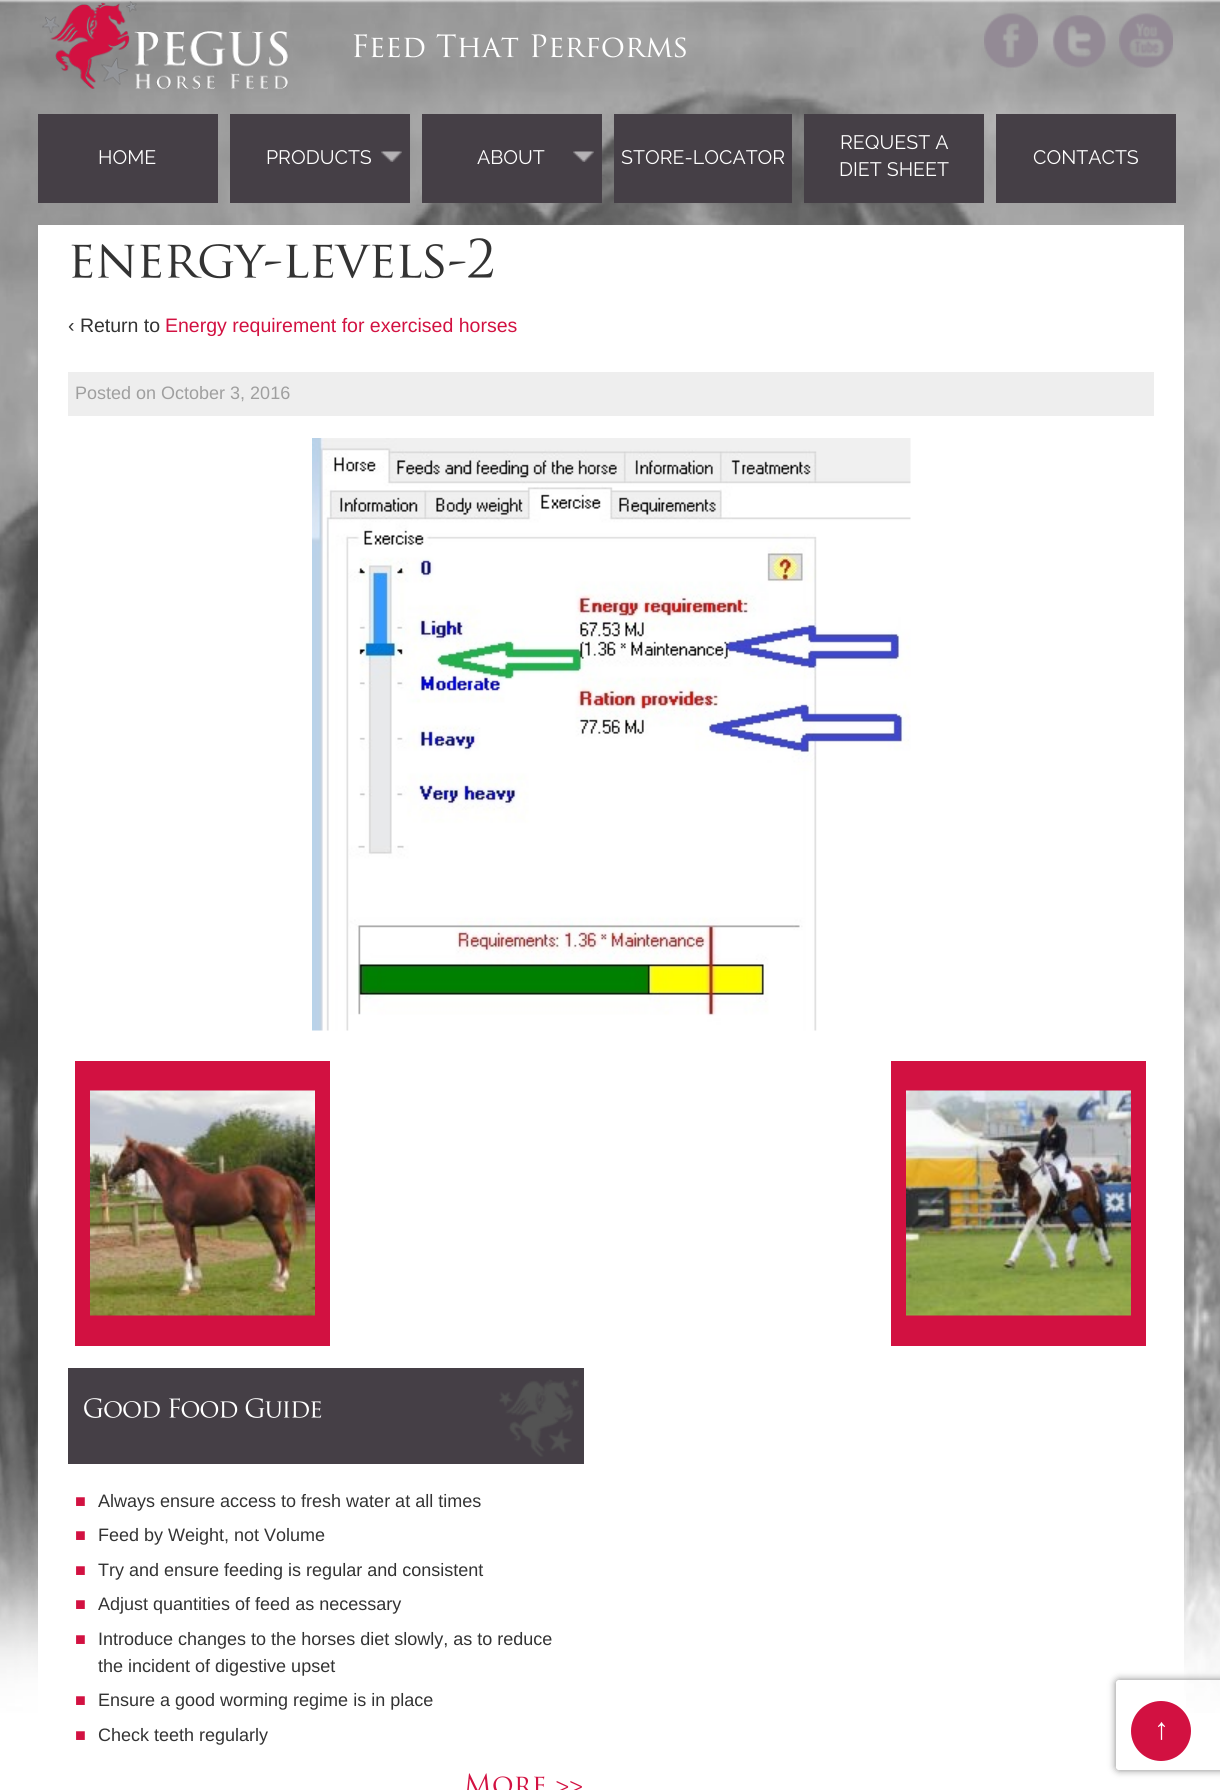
import math
import cairo


def round_path(ctx, x, y, w, h, r):
	ctx.new_sub_path()
	for i, (u, v) in enumerate([(x + w - r, y + h - r), (x + r, y + h - r), (x + r, y + r), (x + w - r, y + r)]):
		ctx.arc(u, v, r, i * math.pi / 2, (i + 1) * math.pi / 2)
	ctx.close_path()

def blur_box(ctx, x, y, w, h, r, blur, alpha):
	ctx.push_group_with_content(cairo.CONTENT_ALPHA)
	ctx.set_operator(cairo.OPERATOR_SOURCE)
	for i in range(15, -16, -2):
		e = blur * i / 6
		if min(w, h) + 2 * e > 0:
			ctx.set_source_rgba(0, 0, 0, alpha * math.erfc((i - 1) / 8.5) / 2)
			round_path(ctx, x - e, y - e, w + 2 * e, h + 2 * e, max(0, min(r + e + blur * .6, min(w, h) / 2 + e)))
			ctx.fill()
	ctx.mask(ctx.pop_group())

def paste(ctx, path, x, y, w, h):
	ctx.save()
	ctx.set_source_surface(cairo.ImageSurface.create_from_png(path), x, y)
	ctx.rectangle(x, y, w, h)
	ctx.fill()
	ctx.restore()

def draw(ctx):
	ctx.set_source_rgb(1, 1, 1)
	ctx.paint()
	paste(ctx, 'media/1.png', 0, 0, 1220, 1713)
	paste(ctx, 'media/2.png', 42, 1, 246, 88)
	paste(ctx, 'media/3.png', 353, 34, 333, 24)
	paste(ctx, 'media/4.png', 984, 13, 54, 55)
	paste(ctx, 'media/5.png', 1052, 15, 54, 53)
	paste(ctx, 'media/6.png', 1119, 13, 54, 55)
	ctx.set_source_rgb(0.271, 0.247, 0.275)
	ctx.rectangle(38, 114, 180, 89)
	ctx.fill()
	ctx.select_font_face('Raleway')
	ctx.set_font_size(19.5)
	ctx.set_source_rgb(1, 1, 1)
	ctx.move_to(98, 164)
	ctx.show_text('HOME')
	ctx.set_source_rgb(0.271, 0.247, 0.275)
	ctx.rectangle(230, 114, 180, 89)
	ctx.fill()
	ctx.set_source_rgb(1, 1, 1)
	ctx.move_to(266, 164)
	ctx.show_text('PRODUCTS')
	paste(ctx, 'media/7.png', 381, 151, 21, 11)
	ctx.set_source_rgb(0.271, 0.247, 0.275)
	ctx.rectangle(422, 114, 180, 89)
	ctx.fill()
	ctx.set_source_rgb(1, 1, 1)
	ctx.move_to(477, 164)
	ctx.show_text('ABOUT')
	paste(ctx, 'media/7.png', 573, 151, 21, 11)
	ctx.set_source_rgb(0.271, 0.247, 0.275)
	ctx.rectangle(614, 114, 178, 89)
	ctx.fill()
	ctx.set_source_rgb(1, 1, 1)
	ctx.move_to(621, 164)
	ctx.show_text('STORE-LOCATOR')
	ctx.set_source_rgb(0.271, 0.247, 0.275)
	ctx.rectangle(804, 114, 180, 89)
	ctx.fill()
	ctx.set_source_rgb(1, 1, 1)
	ctx.move_to(840, 149)
	ctx.show_text('REQUEST A')
	ctx.move_to(839, 176)
	ctx.show_text('DIET SHEET')
	ctx.set_source_rgb(0.271, 0.247, 0.275)
	ctx.rectangle(996, 114, 180, 89)
	ctx.fill()
	ctx.set_source_rgb(1, 1, 1)
	ctx.move_to(1033, 164)
	ctx.show_text('CONTACTS')
	ctx.rectangle(38, 225, 1146, 1488)
	ctx.fill()
	paste(ctx, 'media/8.png', 71, 238, 423, 41)
	ctx.select_font_face('Liberation Sans')
	ctx.set_source_rgb(0.2, 0.2, 0.2)
	ctx.move_to(68, 332)
	ctx.show_text('‹ Return to')
	ctx.set_source_rgb(0.824, 0.067, 0.255)
	ctx.move_to(165, 332)
	ctx.show_text('Energy requirement for exercised horses')
	ctx.set_source_rgb(0.933, 0.933, 0.933)
	ctx.rectangle(68, 372, 1086, 44)
	ctx.fill()
	ctx.set_font_size(18)
	ctx.set_source_rgb(0.624, 0.624, 0.624)
	ctx.move_to(75, 399)
	ctx.show_text('Posted on October 3, 2016')
	paste(ctx, 'media/9.png', 312, 438, 599, 593)
	ctx.set_source_rgb(0.824, 0.067, 0.255)
	ctx.rectangle(75, 1061, 255, 285)
	ctx.fill()
	paste(ctx, 'media/10.png', 90, 1090, 225, 226)
	ctx.rectangle(891, 1061, 255, 285)
	ctx.fill()
	paste(ctx, 'media/11.png', 906, 1090, 225, 226)
	ctx.set_source_rgb(0.271, 0.247, 0.275)
	ctx.rectangle(68, 1368, 516, 96)
	ctx.fill()
	paste(ctx, 'media/12.png', 499, 1379, 80, 78)
	paste(ctx, 'media/13.png', 84, 1398, 238, 20)
	ctx.set_source_rgb(0.824, 0.067, 0.255)
	ctx.move_to(75, 1507)
	ctx.show_text('■')
	ctx.set_source_rgb(0.2, 0.2, 0.2)
	ctx.move_to(98, 1507)
	ctx.show_text('Always ensure access to fresh water at all times')
	ctx.set_source_rgb(0.824, 0.067, 0.255)
	ctx.move_to(75, 1541)
	ctx.show_text('■')
	ctx.set_source_rgb(0.2, 0.2, 0.2)
	ctx.move_to(98, 1541)
	ctx.show_text('Feed by Weight, not Volume')
	ctx.set_source_rgb(0.824, 0.067, 0.255)
	ctx.move_to(75, 1576)
	ctx.show_text('■')
	ctx.set_source_rgb(0.2, 0.2, 0.2)
	ctx.move_to(98, 1576)
	ctx.show_text('Try and ensure feeding is regular and consistent')
	ctx.set_source_rgb(0.824, 0.067, 0.255)
	ctx.move_to(75, 1610)
	ctx.show_text('■')
	ctx.set_source_rgb(0.2, 0.2, 0.2)
	ctx.move_to(98, 1610)
	ctx.show_text('Adjust quantities of feed as necessary')
	ctx.set_source_rgb(0.824, 0.067, 0.255)
	ctx.move_to(75, 1645)
	ctx.show_text('■')
	ctx.set_source_rgb(0.2, 0.2, 0.2)
	ctx.move_to(98, 1645)
	ctx.show_text('Introduce changes to the horses diet slowly, as to reduce')
	ctx.move_to(98, 1672)
	ctx.show_text('the incident of digestive upset')
	ctx.set_source_rgb(0.824, 0.067, 0.255)
	ctx.move_to(75, 1706)
	ctx.show_text('■')
	ctx.set_source_rgb(0.2, 0.2, 0.2)
	ctx.move_to(98, 1706)
	ctx.show_text('Ensure a good worming regime is in place')
	ctx.set_source_rgb(0.824, 0.067, 0.255)
	ctx.move_to(75, 1741)
	ctx.show_text('■')
	ctx.set_source_rgb(0.2, 0.2, 0.2)
	ctx.move_to(98, 1741)
	ctx.show_text('Check teeth regularly')
	paste(ctx, 'media/14.png', 467, 1773, 115, 17)
	ctx.save()
	ctx.set_fill_rule(cairo.FILL_RULE_EVEN_ODD)
	ctx.new_path()
	ctx.move_to(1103, 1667)
	ctx.line_to(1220, 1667)
	ctx.line_to(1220, 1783)
	ctx.line_to(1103, 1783)
	ctx.close_path()
	ctx.move_to(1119, 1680)
	ctx.line_to(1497, 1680)
	ctx.curve_to(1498.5, 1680, 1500, 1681.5, 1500, 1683)
	ctx.line_to(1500, 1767)
	ctx.curve_to(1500, 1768.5, 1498.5, 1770, 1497, 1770)
	ctx.line_to(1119, 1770)
	ctx.curve_to(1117.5, 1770, 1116, 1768.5, 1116, 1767)
	ctx.line_to(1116, 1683)
	ctx.curve_to(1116, 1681.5, 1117.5, 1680, 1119, 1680)
	ctx.close_path()
	ctx.clip()
	ctx.set_source_rgb(0.502, 0.502, 0.502)
	blur_box(ctx, 1116, 1680, 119, 90, 3, 4, 1)
	ctx.restore()
	ctx.set_source_rgb(0.824, 0.067, 0.255)
	ctx.arc(1161, 1731, 30, 0, 2 * math.pi)
	ctx.fill()
	ctx.select_font_face('Liberation Sans', cairo.FONT_SLANT_NORMAL, cairo.FONT_WEIGHT_BOLD)
	ctx.set_font_size(30)
	ctx.set_source_rgb(1, 1, 1)
	ctx.move_to(1154, 1739)
	ctx.show_text('↑')


surface = cairo.ImageSurface(cairo.FORMAT_RGB24, 1220, 1790)
ctx = cairo.Context(surface)
options = cairo.FontOptions()
options.set_hint_metrics(cairo.HINT_METRICS_OFF)
options.set_hint_style(cairo.HINT_STYLE_NONE)
ctx.set_font_options(options)
ctx.set_miter_limit(4)
draw(ctx)
surface.write_to_png('image.png')
